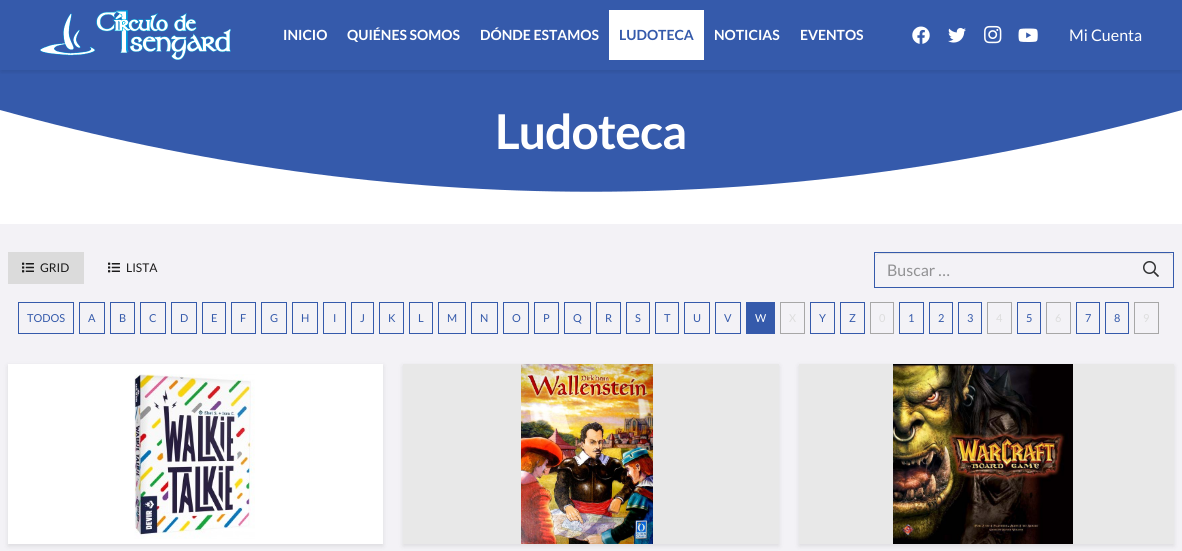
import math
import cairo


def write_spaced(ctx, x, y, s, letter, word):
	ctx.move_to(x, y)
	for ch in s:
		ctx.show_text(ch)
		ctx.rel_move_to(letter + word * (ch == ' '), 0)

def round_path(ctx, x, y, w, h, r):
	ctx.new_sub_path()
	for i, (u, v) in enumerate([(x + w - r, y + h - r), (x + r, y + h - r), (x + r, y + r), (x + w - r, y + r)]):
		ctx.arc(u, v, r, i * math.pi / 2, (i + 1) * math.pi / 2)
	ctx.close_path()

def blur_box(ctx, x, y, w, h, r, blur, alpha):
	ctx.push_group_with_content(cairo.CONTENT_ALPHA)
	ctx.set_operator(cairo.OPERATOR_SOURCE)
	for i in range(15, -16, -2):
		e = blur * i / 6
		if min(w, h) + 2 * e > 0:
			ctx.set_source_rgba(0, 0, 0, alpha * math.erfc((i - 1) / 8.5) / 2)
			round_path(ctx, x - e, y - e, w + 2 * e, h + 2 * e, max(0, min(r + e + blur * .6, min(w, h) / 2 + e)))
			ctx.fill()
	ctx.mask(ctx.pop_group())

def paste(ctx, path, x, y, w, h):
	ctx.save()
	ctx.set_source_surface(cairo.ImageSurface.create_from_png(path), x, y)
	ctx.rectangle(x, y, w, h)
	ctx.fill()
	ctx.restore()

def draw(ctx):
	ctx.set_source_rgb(1, 1, 1)
	ctx.paint()
	ctx.set_source_rgb(0.208, 0.353, 0.671)
	ctx.rectangle(0, 0, 1182, 192)
	ctx.fill()
	ctx.save()
	ctx.rectangle(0, 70, 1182, 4)
	ctx.clip()
	ctx.set_source_rgb(0, 0, 0)
	blur_box(ctx, 1, 4, 1180, 68, 0, 2.5, 0.1)
	ctx.restore()
	paste(ctx, 'media/1.png', 40, 10, 191, 50)
	ctx.select_font_face('Lato', cairo.FONT_SLANT_NORMAL, cairo.FONT_WEIGHT_BOLD)
	ctx.set_font_size(14)
	ctx.set_source_rgb(1, 1, 1)
	for x, y, s in [
		(283, 40, 'INICIO'),
		(347, 40, 'QUIÉNES SOMOS'),
		(480, 40, 'DÓNDE ESTAMOS'),
	]:
		ctx.move_to(x, y)
		ctx.show_text(s)
	ctx.rectangle(609, 10, 95, 50)
	ctx.fill()
	ctx.set_source_rgb(0.208, 0.353, 0.671)
	ctx.move_to(619, 40)
	ctx.show_text('LUDOTECA')
	ctx.set_source_rgb(1, 1, 1)
	ctx.move_to(714, 40)
	ctx.show_text('NOTICIAS')
	ctx.move_to(800, 40)
	ctx.show_text('EVENTOS')
	paste(ctx, 'media/2.png', 912, 26, 18, 18)
	paste(ctx, 'media/3.png', 948, 27, 18, 16)
	paste(ctx, 'media/4.png', 984, 25, 18, 19)
	paste(ctx, 'media/5.png', 1018, 28, 20, 14)
	ctx.select_font_face('Lato')
	ctx.set_font_size(16)
	ctx.move_to(1069, 41)
	ctx.show_text('Mi Cuenta')
	ctx.new_path()
	ctx.move_to(1182, 193)
	ctx.line_to(1182, 110)
	ctx.curve_to(788, 219, 394, 219, 0, 110)
	ctx.line_to(0, 193)
	ctx.close_path()
	ctx.fill()
	ctx.select_font_face('Lato', cairo.FONT_SLANT_NORMAL, cairo.FONT_WEIGHT_BOLD)
	ctx.set_font_size(48)
	write_spaced(ctx, 495, 149, 'Ludoteca', -1, 0)
	ctx.set_source_rgb(0.953, 0.949, 0.961)
	ctx.rectangle(0, 224, 1182, 327)
	ctx.fill()
	ctx.set_source_rgb(0.859, 0.859, 0.859)
	ctx.rectangle(8, 252, 76, 32)
	ctx.fill()
	paste(ctx, 'media/6.png', 22, 262, 12, 11)
	ctx.select_font_face('Lato')
	ctx.set_font_size(12)
	ctx.set_source_rgb(0.102, 0.102, 0.102)
	ctx.move_to(40, 272)
	ctx.show_text('GRID')
	paste(ctx, 'media/7.png', 108, 262, 12, 11)
	ctx.move_to(126, 272)
	ctx.show_text('LISTA')
	ctx.rectangle(874.5, 252.5, 299, 35)
	ctx.set_source_rgb(0.208, 0.353, 0.671)
	ctx.set_line_width(1)
	ctx.stroke()
	ctx.set_source_rgb(0.878, 0.875, 0.882)
	ctx.new_path()
	ctx.move_to(880, 254)
	ctx.line_to(1168, 254)
	ctx.curve_to(1171, 254, 1173, 256, 1173, 259)
	ctx.line_to(1173, 258)
	ctx.curve_to(1173, 255, 1171, 253, 1168, 253)
	ctx.line_to(880, 253)
	ctx.curve_to(877, 253, 875, 255, 875, 258)
	ctx.line_to(875, 259)
	ctx.curve_to(875, 256, 877, 254, 880, 254)
	ctx.close_path()
	ctx.fill()
	ctx.set_font_size(16)
	ctx.set_source_rgb(0.573, 0.573, 0.58)
	ctx.move_to(887, 276)
	ctx.show_text('Buscar …')
	paste(ctx, 'media/8.png', 1143, 261, 16, 16)
	ctx.rectangle(18.5, 302.5, 55, 31)
	ctx.set_source_rgb(0.208, 0.353, 0.671)
	ctx.stroke()
	ctx.set_font_size(11)
	ctx.move_to(27, 322)
	ctx.show_text('TODOS')
	ctx.rectangle(79.5, 302.5, 25, 31)
	ctx.stroke()
	ctx.move_to(88, 322)
	ctx.show_text('A')
	ctx.rectangle(110.5, 302.5, 24, 31)
	ctx.stroke()
	ctx.move_to(119, 322)
	ctx.show_text('B')
	ctx.rectangle(140.5, 302.5, 25, 31)
	ctx.stroke()
	ctx.move_to(149, 322)
	ctx.show_text('C')
	ctx.rectangle(171.5, 302.5, 25, 31)
	ctx.stroke()
	ctx.move_to(180, 322)
	ctx.show_text('D')
	ctx.rectangle(202.5, 302.5, 23, 31)
	ctx.stroke()
	ctx.move_to(211, 322)
	ctx.show_text('E')
	ctx.rectangle(231.5, 302.5, 24, 31)
	ctx.stroke()
	ctx.move_to(240, 322)
	ctx.show_text('F')
	ctx.rectangle(261.5, 302.5, 25, 31)
	ctx.stroke()
	ctx.move_to(270, 322)
	ctx.show_text('G')
	ctx.rectangle(292.5, 302.5, 25, 31)
	ctx.stroke()
	ctx.move_to(301, 322)
	ctx.show_text('H')
	ctx.rectangle(323.5, 302.5, 22, 31)
	ctx.stroke()
	ctx.move_to(333, 322)
	ctx.show_text('I')
	ctx.rectangle(351.5, 302.5, 22, 31)
	ctx.stroke()
	ctx.move_to(360, 322)
	ctx.show_text('J')
	ctx.rectangle(379.5, 302.5, 24, 31)
	ctx.stroke()
	ctx.move_to(388, 322)
	ctx.show_text('K')
	ctx.rectangle(409.5, 302.5, 23, 31)
	ctx.stroke()
	ctx.move_to(418, 322)
	ctx.show_text('L')
	ctx.rectangle(438.5, 302.5, 27, 31)
	ctx.stroke()
	ctx.move_to(447, 322)
	ctx.show_text('M')
	ctx.rectangle(471.5, 302.5, 26, 31)
	ctx.stroke()
	ctx.move_to(480, 322)
	ctx.show_text('N')
	ctx.rectangle(503.5, 302.5, 25, 31)
	ctx.stroke()
	ctx.move_to(512, 322)
	ctx.show_text('O')
	ctx.rectangle(534.5, 302.5, 24, 31)
	ctx.stroke()
	ctx.move_to(543, 322)
	ctx.show_text('P')
	ctx.rectangle(564.5, 302.5, 26, 31)
	ctx.stroke()
	ctx.move_to(573, 322)
	ctx.show_text('Q')
	ctx.rectangle(596.5, 302.5, 24, 31)
	ctx.stroke()
	ctx.move_to(605, 322)
	ctx.show_text('R')
	ctx.rectangle(626.5, 302.5, 23, 31)
	ctx.stroke()
	ctx.move_to(635, 322)
	ctx.show_text('S')
	ctx.rectangle(655.5, 302.5, 23, 31)
	ctx.stroke()
	ctx.move_to(664, 322)
	ctx.show_text('T')
	ctx.rectangle(684.5, 302.5, 25, 31)
	ctx.stroke()
	ctx.move_to(693, 322)
	ctx.show_text('U')
	ctx.rectangle(715.5, 302.5, 25, 31)
	ctx.stroke()
	ctx.move_to(724, 322)
	ctx.show_text('V')
	ctx.rectangle(746, 302, 29, 32)
	ctx.fill()
	ctx.set_source_rgb(1, 1, 1)
	ctx.move_to(755, 322)
	ctx.show_text('W')
	ctx.rectangle(780.5, 302.5, 24, 31)
	ctx.set_source_rgb(0.655, 0.655, 0.655)
	ctx.stroke()
	ctx.set_source_rgb(0.867, 0.867, 0.867)
	ctx.move_to(789, 322)
	ctx.show_text('X')
	ctx.rectangle(810.5, 302.5, 24, 31)
	ctx.set_source_rgb(0.208, 0.353, 0.671)
	ctx.stroke()
	ctx.move_to(819, 322)
	ctx.show_text('Y')
	ctx.rectangle(840.5, 302.5, 24, 31)
	ctx.stroke()
	ctx.move_to(849, 322)
	ctx.show_text('Z')
	ctx.rectangle(870.5, 302.5, 23, 31)
	ctx.set_source_rgb(0.655, 0.655, 0.655)
	ctx.stroke()
	ctx.set_source_rgb(0.867, 0.867, 0.867)
	ctx.move_to(879, 322)
	ctx.show_text('0')
	ctx.rectangle(899.5, 302.5, 24, 31)
	ctx.set_source_rgb(0.208, 0.353, 0.671)
	ctx.stroke()
	ctx.move_to(908, 322)
	ctx.show_text('1')
	ctx.rectangle(929.5, 302.5, 23, 31)
	ctx.stroke()
	ctx.move_to(938, 322)
	ctx.show_text('2')
	ctx.rectangle(958.5, 302.5, 23, 31)
	ctx.stroke()
	ctx.move_to(967, 322)
	ctx.show_text('3')
	ctx.rectangle(987.5, 302.5, 24, 31)
	ctx.set_source_rgb(0.655, 0.655, 0.655)
	ctx.stroke()
	ctx.set_source_rgb(0.867, 0.867, 0.867)
	ctx.move_to(996, 322)
	ctx.show_text('4')
	ctx.rectangle(1017.5, 302.5, 23, 31)
	ctx.set_source_rgb(0.208, 0.353, 0.671)
	ctx.stroke()
	ctx.move_to(1026, 322)
	ctx.show_text('5')
	ctx.rectangle(1046.5, 302.5, 24, 31)
	ctx.set_source_rgb(0.655, 0.655, 0.655)
	ctx.stroke()
	ctx.set_source_rgb(0.867, 0.867, 0.867)
	ctx.move_to(1055, 322)
	ctx.show_text('6')
	ctx.rectangle(1076.5, 302.5, 23, 31)
	ctx.set_source_rgb(0.208, 0.353, 0.671)
	ctx.stroke()
	ctx.move_to(1085, 322)
	ctx.show_text('7')
	ctx.rectangle(1105.5, 302.5, 23, 31)
	ctx.stroke()
	ctx.move_to(1114, 322)
	ctx.show_text('8')
	ctx.rectangle(1134.5, 302.5, 24, 31)
	ctx.set_source_rgb(0.655, 0.655, 0.655)
	ctx.stroke()
	ctx.set_source_rgb(0.867, 0.867, 0.867)
	ctx.move_to(1143, 322)
	ctx.show_text('9')
	ctx.set_source_rgb(0, 0, 0)
	blur_box(ctx, 8, 366, 375, 180, 0, 2.5, 0.1)
	ctx.set_source_rgb(1, 1, 1)
	ctx.rectangle(8, 364, 375, 180)
	ctx.fill()
	paste(ctx, 'media/9.png', 134, 374, 121, 165)
	ctx.set_source_rgb(0, 0, 0)
	blur_box(ctx, 403, 366, 376, 180, 0, 2.5, 0.1)
	ctx.set_source_rgb(0.91, 0.91, 0.91)
	ctx.rectangle(403, 364, 376, 180)
	ctx.fill()
	paste(ctx, 'media/10.png', 521, 364, 132, 180)
	ctx.set_source_rgb(0, 0, 0)
	blur_box(ctx, 799, 366, 375, 180, 0, 2.5, 0.1)
	ctx.set_source_rgb(0.91, 0.91, 0.91)
	ctx.rectangle(799, 364, 375, 180)
	ctx.fill()
	paste(ctx, 'media/11.png', 893, 364, 180, 180)


surface = cairo.ImageSurface(cairo.FORMAT_RGB24, 1182, 551)
ctx = cairo.Context(surface)
options = cairo.FontOptions()
options.set_hint_metrics(cairo.HINT_METRICS_OFF)
options.set_hint_style(cairo.HINT_STYLE_NONE)
ctx.set_font_options(options)
ctx.set_miter_limit(4)
draw(ctx)
surface.write_to_png('image.png')
